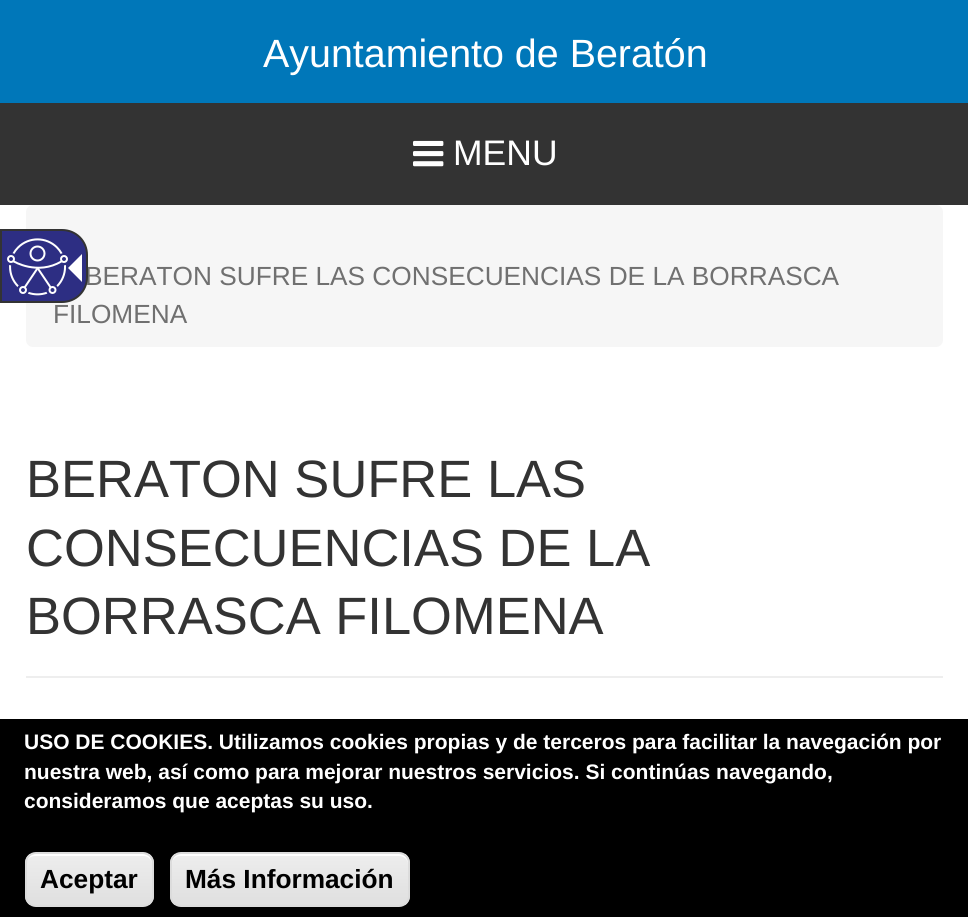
import math
import cairo


def round_path(ctx, x, y, w, h, r):
	ctx.new_sub_path()
	for i, (u, v) in enumerate([(x + w - r, y + h - r), (x + r, y + h - r), (x + r, y + r), (x + w - r, y + r)]):
		ctx.arc(u, v, r, i * math.pi / 2, (i + 1) * math.pi / 2)
	ctx.close_path()

def paste(ctx, path, x, y, w, h):
	ctx.save()
	ctx.set_source_surface(cairo.ImageSurface.create_from_png(path), x, y)
	ctx.rectangle(x, y, w, h)
	ctx.fill()
	ctx.restore()

def draw(ctx):
	ctx.set_source_rgb(1, 1, 1)
	ctx.paint()
	ctx.set_source_rgb(0, 0.467, 0.725)
	ctx.rectangle(0, 0, 968, 103)
	ctx.fill()
	ctx.select_font_face('Liberation Sans')
	ctx.set_font_size(39.4)
	ctx.set_source_rgb(1, 1, 1)
	ctx.move_to(263, 67)
	ctx.show_text('Ayuntamiento de Beratón')
	ctx.set_source_rgb(0.2, 0.2, 0.2)
	ctx.rectangle(0, 103, 968, 102)
	ctx.fill()
	paste(ctx, 'media/1.png', 413, 140, 31, 27)
	ctx.set_font_size(35.5)
	ctx.set_source_rgb(1, 1, 1)
	ctx.move_to(453, 165)
	ctx.show_text('MENU')
	ctx.set_source_rgb(0.961, 0.961, 0.961)
	round_path(ctx, 26, 205, 917, 142, 7)
	ctx.fill()
	ctx.set_font_size(26.25)
	ctx.set_source_rgb(0.439, 0.439, 0.439)
	ctx.move_to(85, 285)
	ctx.show_text('BERATON SUFRE LAS CONSECUENCIAS DE LA BORRASCA')
	ctx.set_source_rgb(0.176, 0.18, 0.514)
	ctx.new_path()
	ctx.move_to(1, 230)
	ctx.line_to(62, 230)
	ctx.curve_to(76, 230, 87, 241, 87, 255)
	ctx.line_to(87, 277)
	ctx.curve_to(87, 291, 76, 302, 62, 302)
	ctx.line_to(1, 302)
	ctx.close_path()
	ctx.fill_preserve()
	ctx.set_source_rgb(0.2, 0.2, 0.2)
	ctx.stroke()
	paste(ctx, 'media/2.png', 7, 238, 61, 58)
	ctx.set_source_rgb(1, 1, 1)
	ctx.new_path()
	ctx.move_to(82, 254)
	ctx.line_to(82, 282)
	ctx.line_to(68, 268)
	ctx.close_path()
	ctx.fill()
	ctx.set_source_rgb(0.439, 0.439, 0.439)
	ctx.move_to(53, 323)
	ctx.show_text('FILOMENA')
	ctx.set_source_rgb(0.933, 0.933, 0.933)
	ctx.rectangle(26, 676, 917, 2)
	ctx.fill()
	ctx.set_font_size(52.5)
	ctx.set_source_rgb(0.2, 0.2, 0.2)
	for x, y, s in [
		(26, 497, 'BERATON SUFRE LAS'),
		(26, 566, 'CONSECUENCIAS DE LA'),
		(26, 634, 'BORRASCA FILOMENA'),
	]:
		ctx.move_to(x, y)
		ctx.show_text(s)
	ctx.set_source_rgb(0, 0, 0)
	ctx.rectangle(0, 719, 968, 198)
	ctx.fill()
	ctx.select_font_face('Liberation Sans', cairo.FONT_SLANT_NORMAL, cairo.FONT_WEIGHT_BOLD)
	ctx.set_font_size(21)
	ctx.set_source_rgb(1, 1, 1)
	for x, y, s in [
		(24, 749, 'USO DE COOKIES. Utilizamos cookies propias y de terceros para facilitar la navegación por'),
		(24, 779, 'nuestra web, así como para mejorar nuestros servicios. Si continúas navegando,'),
		(24, 808, 'consideramos que aceptas su uso.'),
	]:
		ctx.move_to(x, y)
		ctx.show_text(s)
	ctx.save()
	round_path(ctx, 25, 852, 129, 55, 11)
	ctx.clip()
	gradient = cairo.LinearGradient(89, 854, 89, 905)
	gradient.add_color_stop_rgba(0.05, 0.929, 0.929, 0.929, 1)
	gradient.add_color_stop_rgba(1, 0.875, 0.875, 0.875, 1)
	ctx.set_source(gradient)
	ctx.rectangle(25, 854, 129, 51)
	ctx.fill()
	ctx.restore()
	ctx.new_path()
	ctx.move_to(35, 856)
	ctx.line_to(144, 856)
	ctx.curve_to(148, 856, 152, 860, 152, 864)
	ctx.curve_to(152, 850, 134, 854, 125, 854)
	ctx.line_to(53, 854)
	ctx.curve_to(44, 854, 26, 850, 26, 864)
	ctx.curve_to(26, 860, 30, 856, 35, 856)
	ctx.close_path()
	ctx.fill()
	round_path(ctx, 26, 853, 127, 53, 10)
	ctx.set_source_rgb(0.863, 0.863, 0.863)
	ctx.stroke()
	ctx.set_font_size(26.25)
	ctx.set_source_rgb(0, 0, 0)
	ctx.move_to(40, 888)
	ctx.show_text('Aceptar')
	ctx.save()
	round_path(ctx, 170, 852, 240, 55, 11)
	ctx.clip()
	gradient = cairo.LinearGradient(290, 854, 290, 905)
	gradient.add_color_stop_rgba(0.05, 0.929, 0.929, 0.929, 1)
	gradient.add_color_stop_rgba(1, 0.875, 0.875, 0.875, 1)
	ctx.set_source(gradient)
	ctx.rectangle(170, 854, 240, 51)
	ctx.fill()
	ctx.restore()
	ctx.set_source_rgb(1, 1, 1)
	ctx.new_path()
	ctx.move_to(180, 856)
	ctx.line_to(399, 856)
	ctx.curve_to(404, 856, 408, 860, 408, 864)
	ctx.line_to(408, 863)
	ctx.curve_to(408, 858, 404, 854, 399, 854)
	ctx.line_to(181, 854)
	ctx.curve_to(176, 854, 172, 858, 172, 863)
	ctx.line_to(172, 864)
	ctx.curve_to(172, 860, 175, 856, 180, 856)
	ctx.close_path()
	ctx.fill()
	round_path(ctx, 171, 853, 238, 53, 10)
	ctx.set_source_rgb(0.863, 0.863, 0.863)
	ctx.stroke()
	ctx.set_source_rgb(0, 0, 0)
	ctx.move_to(185, 888)
	ctx.show_text('Más Información')


surface = cairo.ImageSurface(cairo.FORMAT_RGB24, 968, 917)
ctx = cairo.Context(surface)
options = cairo.FontOptions()
options.set_hint_metrics(cairo.HINT_METRICS_OFF)
options.set_hint_style(cairo.HINT_STYLE_NONE)
ctx.set_font_options(options)
ctx.set_miter_limit(4)
draw(ctx)
surface.write_to_png('image.png')
